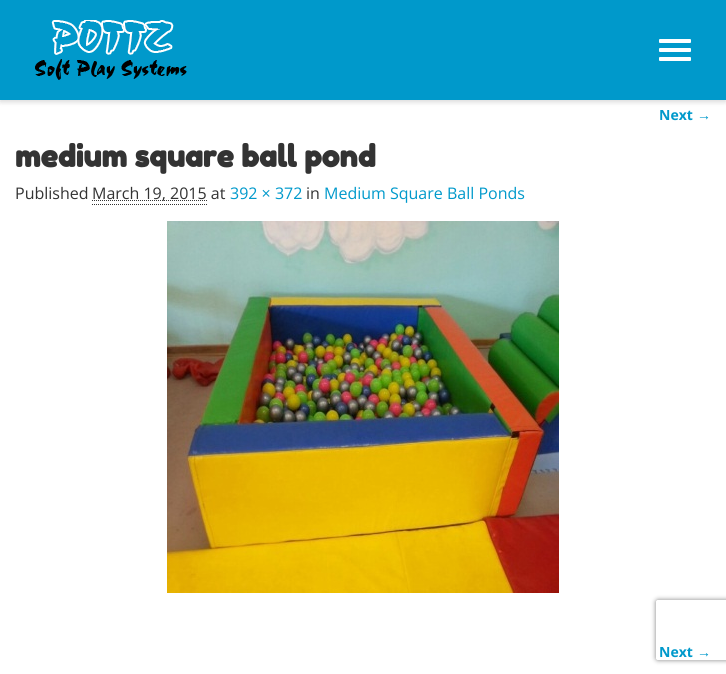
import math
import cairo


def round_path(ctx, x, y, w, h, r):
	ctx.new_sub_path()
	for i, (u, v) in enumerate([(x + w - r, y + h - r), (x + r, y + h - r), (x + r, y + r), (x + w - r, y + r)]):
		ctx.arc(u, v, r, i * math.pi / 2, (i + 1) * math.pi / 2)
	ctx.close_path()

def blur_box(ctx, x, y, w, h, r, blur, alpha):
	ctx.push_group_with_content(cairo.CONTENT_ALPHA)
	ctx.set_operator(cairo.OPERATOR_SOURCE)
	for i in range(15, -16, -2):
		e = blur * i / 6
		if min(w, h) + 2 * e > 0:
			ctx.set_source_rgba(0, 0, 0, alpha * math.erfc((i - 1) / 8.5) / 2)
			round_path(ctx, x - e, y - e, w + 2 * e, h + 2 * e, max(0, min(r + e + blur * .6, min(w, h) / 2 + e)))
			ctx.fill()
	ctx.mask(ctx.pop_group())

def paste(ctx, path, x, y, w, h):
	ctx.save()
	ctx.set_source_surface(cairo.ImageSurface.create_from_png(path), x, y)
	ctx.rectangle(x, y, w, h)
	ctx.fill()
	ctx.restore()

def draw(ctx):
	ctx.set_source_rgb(1, 1, 1)
	ctx.paint()
	ctx.set_source_rgb(0, 0, 0)
	blur_box(ctx, 0, 2, 726, 100, 0, 2.5, 0.15)
	ctx.set_source_rgb(0, 0.6, 0.796)
	ctx.rectangle(0, 0, 726, 100)
	ctx.fill()
	paste(ctx, 'media/1.png', 35, 20, 152, 60)
	ctx.set_source_rgb(1, 1, 1)
	round_path(ctx, 659, 39, 32, 4, 1)
	ctx.fill()
	round_path(ctx, 659, 48, 32, 4, 1)
	ctx.fill()
	round_path(ctx, 659, 57, 32, 4, 1)
	ctx.fill()
	ctx.select_font_face('Open Sans', cairo.FONT_SLANT_NORMAL, cairo.FONT_WEIGHT_BOLD)
	ctx.set_font_size(14)
	ctx.set_source_rgb(0, 0.6, 0.796)
	ctx.move_to(659, 120)
	ctx.show_text('Next')
	ctx.select_font_face('Liberation Sans', cairo.FONT_SLANT_NORMAL, cairo.FONT_WEIGHT_BOLD)
	ctx.move_to(697, 120)
	ctx.show_text('→')
	ctx.select_font_face('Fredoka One', cairo.FONT_SLANT_NORMAL, cairo.FONT_WEIGHT_BOLD)
	ctx.set_font_size(30)
	ctx.set_source_rgb(0.2, 0.2, 0.2)
	ctx.move_to(15, 167)
	ctx.show_text('medium square ball pond')
	ctx.select_font_face('Open Sans')
	ctx.set_font_size(16)
	ctx.move_to(15, 199)
	ctx.show_text('Published')
	ctx.new_path()
	ctx.move_to(92, 200.5)
	ctx.line_to(207, 200.5)
	ctx.set_line_width(1)
	ctx.set_dash([1, 1])
	ctx.stroke()
	ctx.move_to(92, 199)
	ctx.show_text('March 19, 2015 at')
	ctx.new_path()
	ctx.move_to(92, 204.5)
	ctx.line_to(207, 204.5)
	ctx.stroke()
	ctx.set_source_rgb(0, 0.6, 0.796)
	ctx.move_to(230, 199)
	ctx.show_text('392 × 372')
	ctx.set_source_rgb(0.2, 0.2, 0.2)
	ctx.move_to(306, 199)
	ctx.show_text('in')
	ctx.set_source_rgb(0, 0.6, 0.796)
	ctx.move_to(324, 199)
	ctx.show_text('Medium Square Ball Ponds')
	paste(ctx, 'media/2.png', 167, 221, 392, 372)
	ctx.select_font_face('Open Sans', cairo.FONT_SLANT_NORMAL, cairo.FONT_WEIGHT_BOLD)
	ctx.set_font_size(14)
	ctx.move_to(659, 657)
	ctx.show_text('Next')
	ctx.select_font_face('Liberation Sans', cairo.FONT_SLANT_NORMAL, cairo.FONT_WEIGHT_BOLD)
	ctx.move_to(697, 657)
	ctx.show_text('→')
	ctx.save()
	ctx.set_fill_rule(cairo.FILL_RULE_EVEN_ODD)
	ctx.new_path()
	ctx.move_to(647, 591)
	ctx.line_to(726, 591)
	ctx.line_to(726, 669)
	ctx.line_to(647, 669)
	ctx.close_path()
	ctx.move_to(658, 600)
	ctx.line_to(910, 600)
	ctx.curve_to(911, 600, 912, 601, 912, 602)
	ctx.line_to(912, 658)
	ctx.curve_to(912, 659, 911, 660, 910, 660)
	ctx.line_to(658, 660)
	ctx.curve_to(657, 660, 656, 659, 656, 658)
	ctx.line_to(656, 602)
	ctx.curve_to(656, 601, 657, 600, 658, 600)
	ctx.close_path()
	ctx.clip()
	ctx.set_source_rgb(0.502, 0.502, 0.502)
	blur_box(ctx, 656, 600, 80, 60, 2, 2.5, 1)
	ctx.restore()


surface = cairo.ImageSurface(cairo.FORMAT_RGB24, 726, 674)
ctx = cairo.Context(surface)
options = cairo.FontOptions()
options.set_hint_metrics(cairo.HINT_METRICS_OFF)
options.set_hint_style(cairo.HINT_STYLE_NONE)
ctx.set_font_options(options)
ctx.set_miter_limit(4)
draw(ctx)
surface.write_to_png('image.png')
